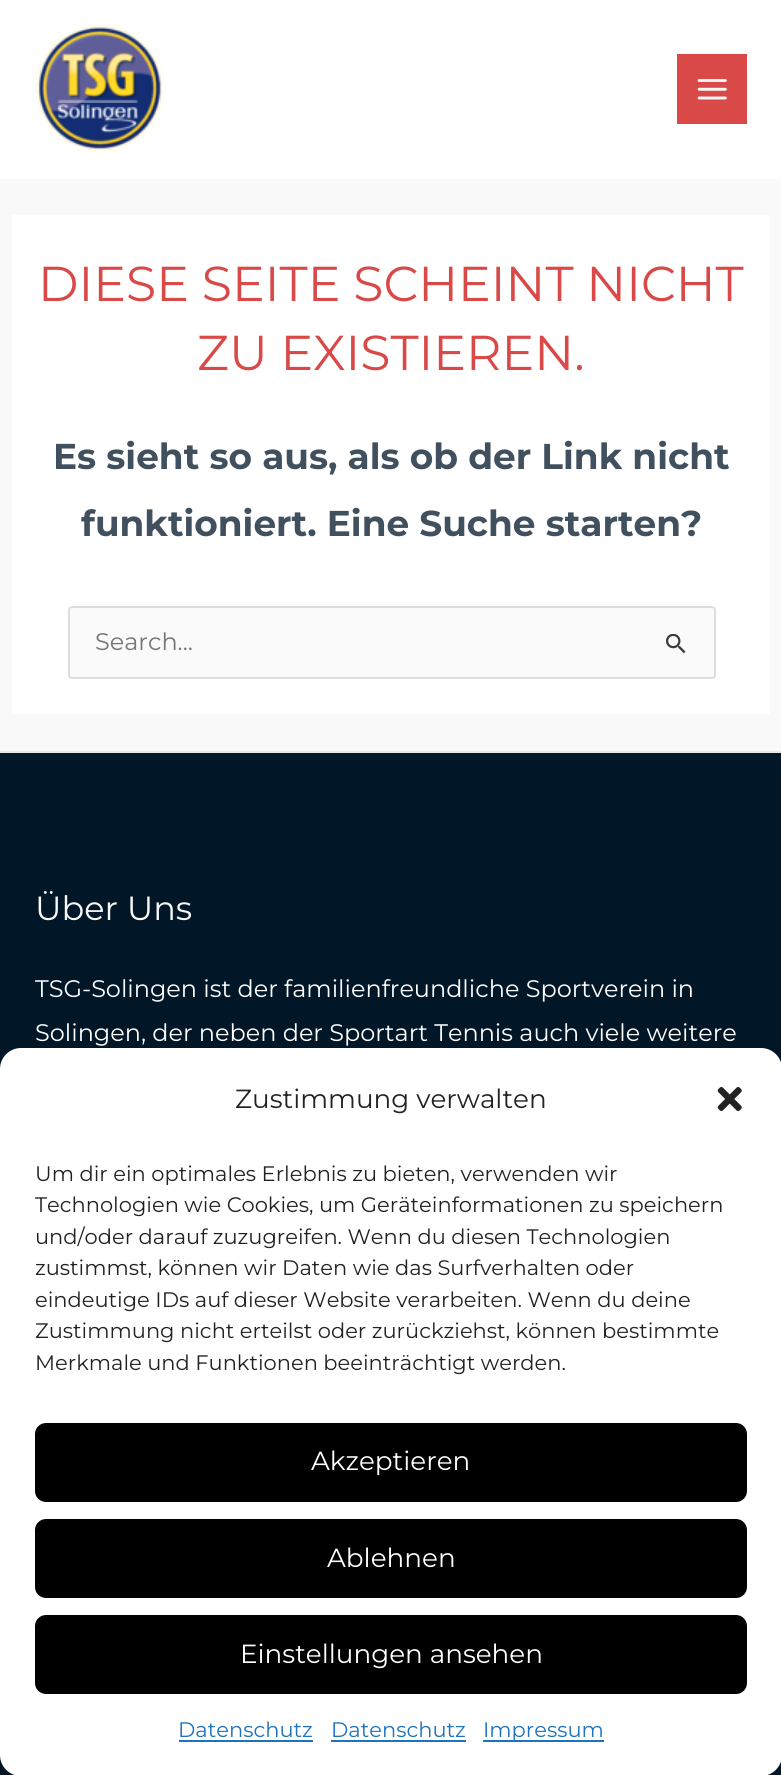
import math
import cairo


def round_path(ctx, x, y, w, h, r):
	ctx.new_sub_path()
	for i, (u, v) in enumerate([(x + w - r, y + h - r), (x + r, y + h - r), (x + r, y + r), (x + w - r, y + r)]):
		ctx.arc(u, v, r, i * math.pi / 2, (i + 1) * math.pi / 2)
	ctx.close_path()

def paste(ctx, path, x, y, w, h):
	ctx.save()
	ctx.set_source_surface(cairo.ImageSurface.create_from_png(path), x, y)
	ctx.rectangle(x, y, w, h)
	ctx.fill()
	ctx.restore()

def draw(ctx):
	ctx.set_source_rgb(0.976, 0.973, 0.973)
	ctx.paint()
	ctx.set_source_rgb(1, 1, 1)
	ctx.rectangle(0, 0, 781, 179)
	ctx.fill()
	paste(ctx, 'media/1.png', 35, 24, 130, 130)
	ctx.set_source_rgb(0.851, 0.286, 0.282)
	ctx.rectangle(677, 54, 70, 70)
	ctx.fill()
	paste(ctx, 'media/2.png', 697, 79, 30, 21)
	ctx.set_source_rgb(1, 1, 1)
	ctx.rectangle(12, 215, 758, 499)
	ctx.fill()
	ctx.select_font_face('Montserrat Thin')
	ctx.set_font_size(49)
	ctx.set_source_rgb(0.851, 0.286, 0.282)
	ctx.move_to(38, 301)
	ctx.show_text('DIESE SEITE SCHEINT NICHT')
	ctx.move_to(197, 370)
	ctx.show_text('ZU EXISTIEREN.')
	ctx.select_font_face('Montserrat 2 Thin')
	ctx.set_font_size(35.9)
	ctx.set_source_rgb(0.255, 0.314, 0.369)
	ctx.move_to(53, 469)
	ctx.show_text('Es sieht so aus, als ob der Link nicht')
	ctx.move_to(81, 536)
	ctx.show_text('funktioniert. Eine Suche starten?')
	ctx.set_source_rgb(0.98, 0.98, 0.98)
	round_path(ctx, 69, 607, 646, 71, 3)
	ctx.fill_preserve()
	ctx.set_source_rgb(0.867, 0.867, 0.867)
	ctx.stroke()
	ctx.select_font_face('Montserrat Thin')
	ctx.set_font_size(23.95)
	ctx.set_source_rgb(0.459, 0.459, 0.459)
	ctx.move_to(95, 650)
	ctx.show_text('Search...')
	paste(ctx, 'media/3.png', 666, 634, 20, 20)
	ctx.set_source_rgb(0.004, 0.086, 0.153)
	ctx.rectangle(0, 753, 781, 1022)
	ctx.fill()
	ctx.set_source_rgb(0.902, 0.902, 0.902)
	ctx.rectangle(0, 751, 781, 2)
	ctx.fill()
	ctx.set_font_size(33.5)
	ctx.set_source_rgb(0.976, 0.973, 0.973)
	ctx.move_to(35, 920)
	ctx.show_text('Über Uns')
	ctx.set_font_size(23.95)
	ctx.set_source_rgb(1, 1, 1)
	ctx.move_to(35, 997)
	ctx.show_text('TSG-Solingen ist der familienfreundliche Sportverein in')
	ctx.move_to(35, 1041)
	ctx.show_text('Solingen, der neben der Sportart Tennis auch viele weitere')
	round_path(ctx, 0, 1048, 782, 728, 21)
	ctx.fill()
	ctx.set_font_size(26.25)
	ctx.set_source_rgb(0.133, 0.133, 0.133)
	ctx.move_to(235, 1108)
	ctx.show_text('Zustimmung verwalten')
	paste(ctx, 'media/4.png', 717, 1087, 25, 24)
	ctx.set_font_size(21)
	for x, y, s in [
		(35, 1181, 'Um dir ein optimales Erlebnis zu bieten, verwenden wir'),
		(35, 1212, 'Technologien wie Cookies, um Geräteinformationen zu speichern'),
		(35, 1244, 'und/oder darauf zuzugreifen. Wenn du diesen Technologien'),
		(35, 1275, 'zustimmst, können wir Daten wie das Surfverhalten oder'),
		(35, 1307, 'eindeutige IDs auf dieser Website verarbeiten. Wenn du deine'),
		(35, 1338, 'Zustimmung nicht erteilst oder zurückziehst, können bestimmte'),
		(35, 1370, 'Merkmale und Funktionen beeinträchtigt werden.'),
	]:
		ctx.move_to(x, y)
		ctx.show_text(s)
	ctx.set_source_rgb(0, 0, 0)
	round_path(ctx, 36, 1424, 710, 77, 10)
	ctx.fill_preserve()
	ctx.stroke()
	ctx.set_font_size(26.25)
	ctx.set_source_rgb(1, 1, 1)
	ctx.move_to(311, 1470)
	ctx.show_text('Akzeptieren')
	ctx.set_source_rgb(0, 0, 0)
	round_path(ctx, 36, 1520, 710, 77, 10)
	ctx.fill_preserve()
	ctx.stroke()
	ctx.set_source_rgb(1, 1, 1)
	ctx.move_to(327, 1567)
	ctx.show_text('Ablehnen')
	ctx.set_source_rgb(0, 0, 0)
	round_path(ctx, 36, 1616, 710, 77, 10)
	ctx.fill_preserve()
	ctx.stroke()
	ctx.set_source_rgb(1, 1, 1)
	ctx.move_to(240, 1663)
	ctx.show_text('Einstellungen ansehen')
	ctx.set_font_size(21)
	ctx.set_source_rgb(0.118, 0.451, 0.745)
	ctx.move_to(178, 1737)
	ctx.show_text('Datenschutz')
	ctx.rectangle(179, 1740, 134, 2)
	ctx.fill()
	ctx.move_to(331, 1737)
	ctx.show_text('Datenschutz')
	ctx.rectangle(331, 1740, 135, 2)
	ctx.fill()
	ctx.rectangle(483, 1740, 121, 2)
	ctx.fill()
	ctx.move_to(483, 1737)
	ctx.show_text('Impressum')


surface = cairo.ImageSurface(cairo.FORMAT_RGB24, 781, 1775)
ctx = cairo.Context(surface)
options = cairo.FontOptions()
options.set_hint_metrics(cairo.HINT_METRICS_OFF)
options.set_hint_style(cairo.HINT_STYLE_NONE)
ctx.set_font_options(options)
ctx.set_miter_limit(4)
draw(ctx)
surface.write_to_png('image.png')
